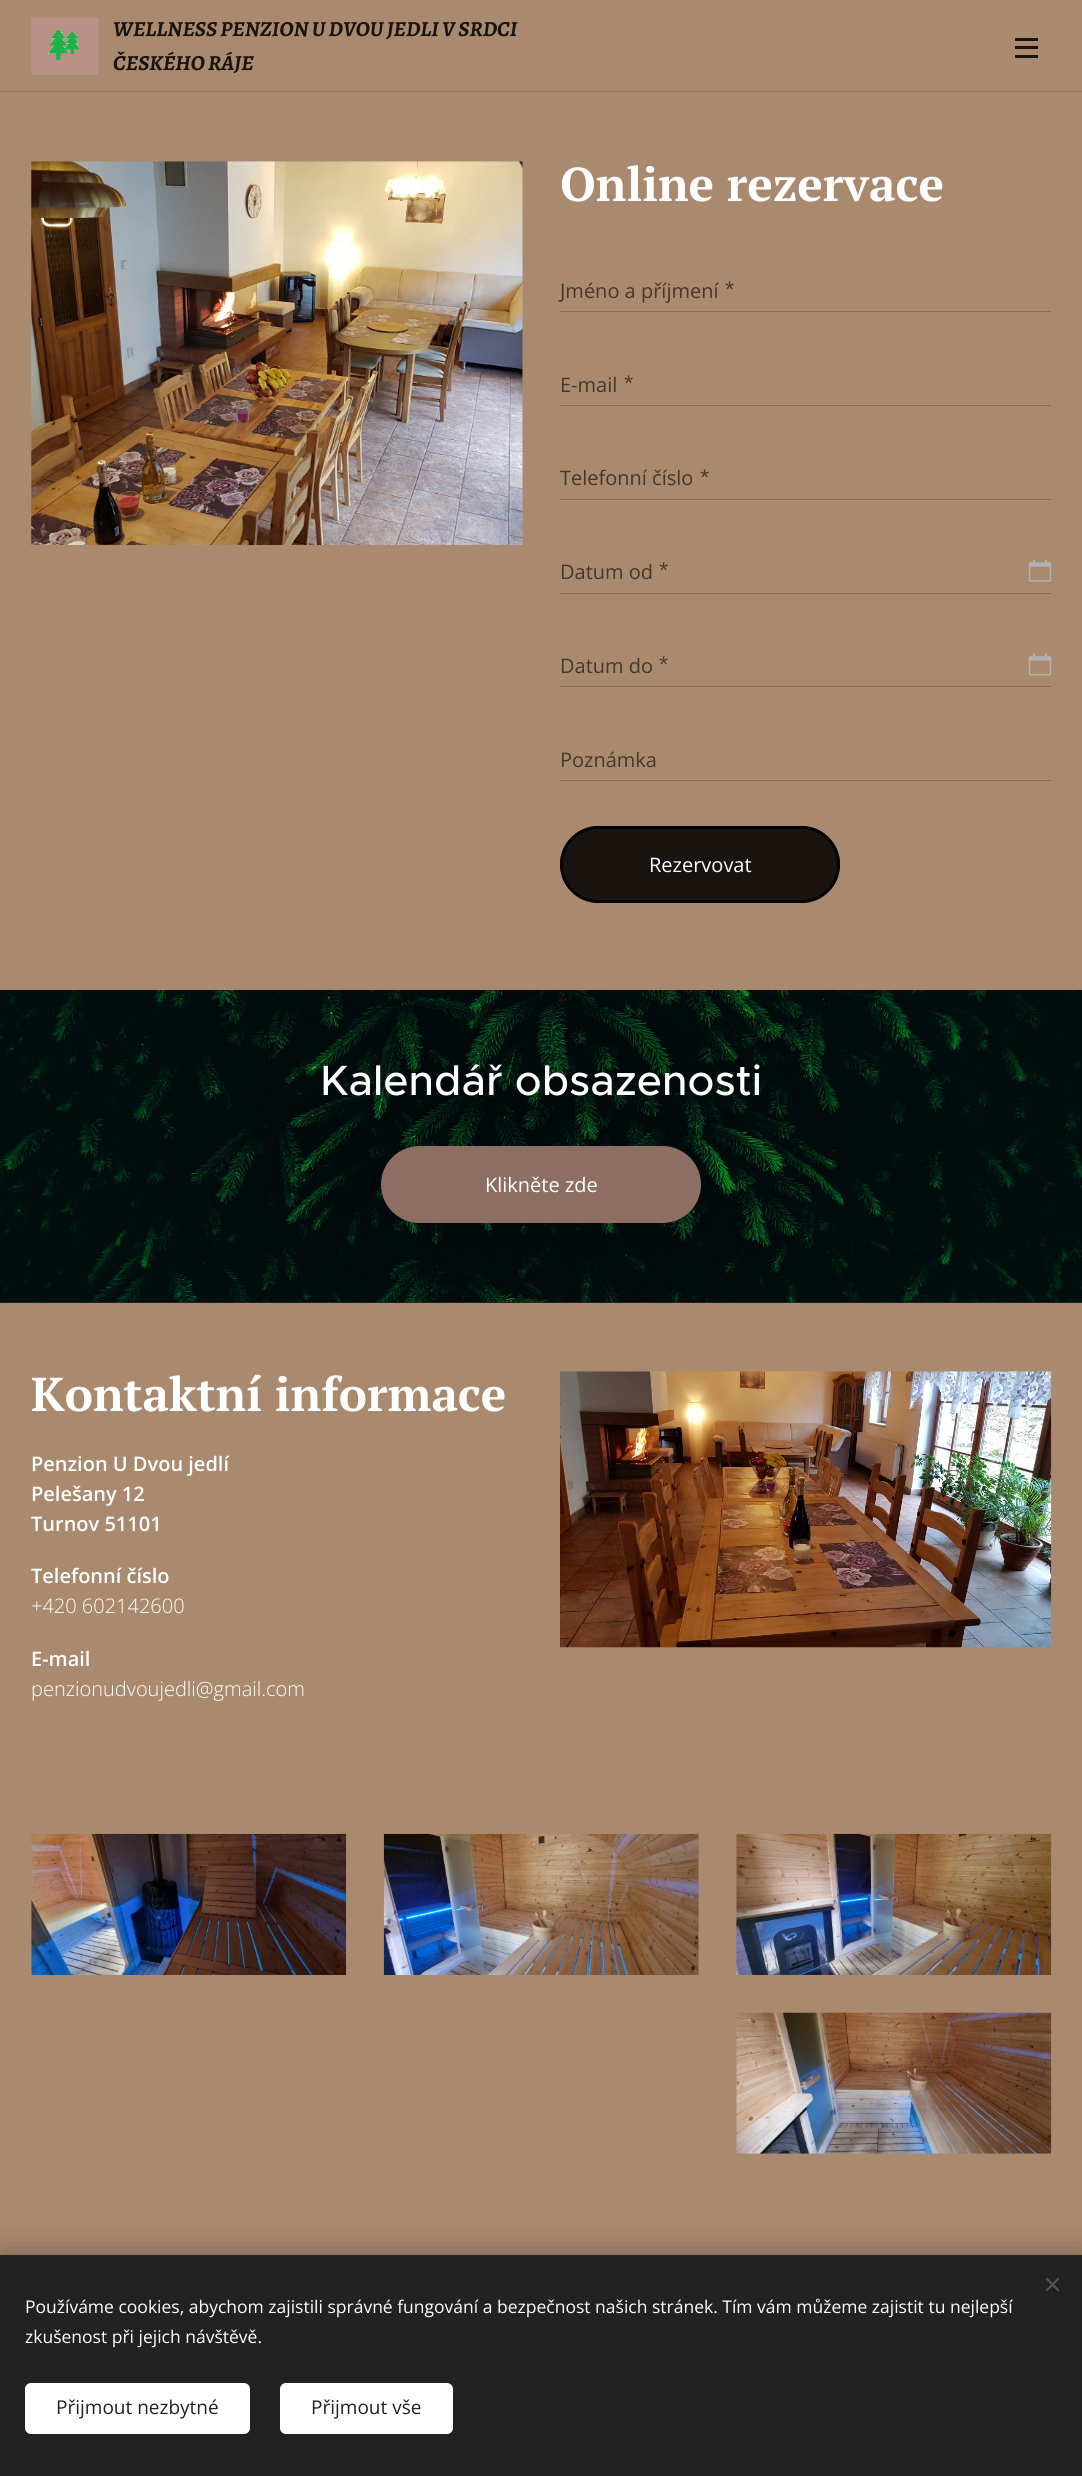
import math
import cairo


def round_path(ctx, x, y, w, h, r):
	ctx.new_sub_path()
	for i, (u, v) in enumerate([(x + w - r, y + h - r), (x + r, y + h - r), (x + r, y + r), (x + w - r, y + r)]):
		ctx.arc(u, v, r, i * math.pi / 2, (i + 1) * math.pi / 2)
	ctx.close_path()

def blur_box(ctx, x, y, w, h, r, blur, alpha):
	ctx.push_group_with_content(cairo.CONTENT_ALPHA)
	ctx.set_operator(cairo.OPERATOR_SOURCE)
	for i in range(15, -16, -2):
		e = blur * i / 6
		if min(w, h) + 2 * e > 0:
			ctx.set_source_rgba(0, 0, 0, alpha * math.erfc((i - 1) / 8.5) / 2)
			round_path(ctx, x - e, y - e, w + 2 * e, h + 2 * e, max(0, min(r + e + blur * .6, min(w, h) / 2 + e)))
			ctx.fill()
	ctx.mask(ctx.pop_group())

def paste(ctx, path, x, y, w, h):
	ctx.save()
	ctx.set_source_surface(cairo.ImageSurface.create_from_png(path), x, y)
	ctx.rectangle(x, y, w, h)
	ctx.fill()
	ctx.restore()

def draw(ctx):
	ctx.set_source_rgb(0.667, 0.541, 0.435)
	ctx.paint()
	paste(ctx, 'media/1.png', 31, 17, 68, 58)
	ctx.select_font_face('Alegreya', cairo.FONT_SLANT_ITALIC, cairo.FONT_WEIGHT_BOLD)
	ctx.set_font_size(21.5)
	ctx.set_source_rgb(0.102, 0.082, 0.067)
	ctx.move_to(113, 36)
	ctx.show_text('WELLNESS PENZION U DVOU JEDLI V SRDCI')
	ctx.move_to(113, 70)
	ctx.show_text('ČESKÉHO RÁJE')
	ctx.rectangle(1015, 46, 23, 3)
	ctx.rectangle(1015, 38, 23, 3)
	ctx.rectangle(1015, 55, 23, 3)
	ctx.fill()
	ctx.set_source_rgb(0.569, 0.459, 0.369)
	ctx.rectangle(0, 91, 1082, 1)
	ctx.fill()
	paste(ctx, 'media/2.png', 31, 161, 492, 384)
	ctx.select_font_face('PT Serif', cairo.FONT_SLANT_NORMAL, cairo.FONT_WEIGHT_BOLD)
	ctx.set_font_size(47.5)
	ctx.set_source_rgb(1, 1, 1)
	ctx.move_to(560, 201)
	ctx.show_text('Online rezervace')
	ctx.select_font_face('Open Sans')
	ctx.set_font_size(20)
	ctx.set_source_rgb(0.267, 0.216, 0.173)
	ctx.move_to(560, 298)
	ctx.show_text('Jméno a příjmení')
	ctx.select_font_face('Roboto Flex')
	ctx.set_font_size(17.5)
	ctx.move_to(725, 294)
	ctx.show_text('*')
	ctx.set_source_rgb(0.533, 0.431, 0.349)
	ctx.rectangle(560, 311, 491, 1)
	ctx.fill()
	ctx.select_font_face('Open Sans')
	ctx.set_font_size(20)
	ctx.set_source_rgb(0.267, 0.216, 0.173)
	ctx.move_to(560, 392)
	ctx.show_text('E-mail')
	ctx.select_font_face('Roboto Flex')
	ctx.set_font_size(17.5)
	ctx.move_to(624, 388)
	ctx.show_text('*')
	ctx.set_source_rgb(0.533, 0.431, 0.349)
	ctx.rectangle(560, 405, 491, 1)
	ctx.fill()
	ctx.select_font_face('Open Sans')
	ctx.set_font_size(20)
	ctx.set_source_rgb(0.267, 0.216, 0.173)
	ctx.move_to(560, 485)
	ctx.show_text('Telefonní číslo')
	ctx.select_font_face('Roboto Flex')
	ctx.set_font_size(17.5)
	ctx.move_to(700, 482)
	ctx.show_text('*')
	ctx.set_source_rgb(0.533, 0.431, 0.349)
	ctx.rectangle(560, 499, 491, 1)
	ctx.fill()
	ctx.select_font_face('Open Sans')
	ctx.set_font_size(20)
	ctx.set_source_rgb(0.267, 0.216, 0.173)
	ctx.move_to(560, 579)
	ctx.show_text('Datum od')
	ctx.select_font_face('Roboto Flex')
	ctx.set_font_size(17.5)
	ctx.move_to(659, 575)
	ctx.show_text('*')
	paste(ctx, 'media/3.png', 1028, 559, 24, 23)
	ctx.set_source_rgb(0.533, 0.431, 0.349)
	ctx.rectangle(560, 593, 491, 1)
	ctx.fill()
	ctx.select_font_face('Open Sans')
	ctx.set_font_size(20)
	ctx.set_source_rgb(0.267, 0.216, 0.173)
	ctx.move_to(560, 673)
	ctx.show_text('Datum do')
	ctx.select_font_face('Roboto Flex')
	ctx.set_font_size(17.5)
	ctx.move_to(659, 669)
	ctx.show_text('*')
	paste(ctx, 'media/4.png', 1028, 653, 24, 23)
	ctx.set_source_rgb(0.533, 0.431, 0.349)
	ctx.rectangle(560, 686, 491, 1)
	ctx.fill()
	ctx.select_font_face('Open Sans')
	ctx.set_font_size(20)
	ctx.set_source_rgb(0.267, 0.216, 0.173)
	ctx.move_to(560, 767)
	ctx.show_text('Poznámka')
	ctx.set_source_rgb(0.533, 0.431, 0.349)
	ctx.rectangle(560, 780, 491, 1)
	ctx.fill()
	ctx.set_source_rgb(0.102, 0.082, 0.067)
	round_path(ctx, 560, 826, 280, 77, 38.5)
	ctx.fill()
	round_path(ctx, 561.5, 827.5, 277, 74, 37)
	ctx.set_source_rgba(0, 0, 0, 0.85)
	ctx.set_line_width(3)
	ctx.stroke()
	ctx.set_source_rgb(1, 1, 1)
	ctx.move_to(649, 872)
	ctx.show_text('Rezervovat')
	ctx.set_source_rgb(0.153, 0.153, 0.153)
	ctx.rectangle(0, 1302, 1082, 1)
	ctx.fill()
	paste(ctx, 'media/5.png', 0, 990, 1082, 313)
	ctx.select_font_face('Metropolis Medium')
	ctx.set_font_size(42.5)
	ctx.set_source_rgb(1, 1, 1)
	ctx.move_to(320, 1095)
	ctx.show_text('Kalendář obsazenosti')
	ctx.set_source_rgb(0.553, 0.431, 0.388)
	round_path(ctx, 382.5, 1147.5, 317, 74, 37)
	ctx.fill_preserve()
	ctx.stroke()
	ctx.select_font_face('Open Sans')
	ctx.set_font_size(20)
	ctx.set_source_rgb(1, 1, 1)
	ctx.move_to(485, 1192)
	ctx.show_text('Klikněte zde')
	ctx.select_font_face('PT Serif', cairo.FONT_SLANT_NORMAL, cairo.FONT_WEIGHT_BOLD)
	ctx.set_font_size(47.5)
	ctx.move_to(31, 1411)
	ctx.show_text('Kontaktní informace')
	ctx.select_font_face('Open Sans SemiBold')
	ctx.set_font_size(20)
	for x, y, s in [
		(31, 1471, 'Penzion U Dvou jedlí'),
		(31, 1501, 'Pelešany 12'),
		(31, 1531, 'Turnov 51101'),
		(31, 1583, 'Telefonní číslo'),
	]:
		ctx.move_to(x, y)
		ctx.show_text(s)
	ctx.select_font_face('Open Sans Light')
	ctx.move_to(31, 1613)
	ctx.show_text('+420 602142600')
	ctx.select_font_face('Open Sans SemiBold')
	ctx.move_to(31, 1666)
	ctx.show_text('E-mail')
	ctx.select_font_face('Open Sans Light')
	ctx.move_to(31, 1696)
	ctx.show_text('penzionudvoujedli@gmail.com')
	paste(ctx, 'media/6.png', 560, 1371, 492, 277)
	paste(ctx, 'media/7.png', 31, 1833, 316, 142)
	paste(ctx, 'media/8.png', 383, 1833, 316, 142)
	paste(ctx, 'media/9.png', 736, 1833, 316, 142)
	paste(ctx, 'media/10.png', 736, 2012, 316, 142)
	ctx.set_source_rgb(0, 0, 0)
	blur_box(ctx, 0, 2255, 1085, 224, 0, 15.5, 0.33)
	ctx.set_source_rgb(0.133, 0.133, 0.133)
	ctx.rectangle(0, 2255, 1082, 221)
	ctx.fill()
	ctx.set_source_rgb(0.333, 0.333, 0.333)
	ctx.new_path()
	ctx.move_to(1045.5, 2290)
	ctx.line_to(1058, 2277.5)
	ctx.line_to(1059.5, 2279)
	ctx.line_to(1047, 2291.5)
	ctx.close_path()
	ctx.fill()
	ctx.new_path()
	ctx.move_to(1047, 2277.5)
	ctx.line_to(1059.5, 2290)
	ctx.line_to(1058, 2291.5)
	ctx.line_to(1045.5, 2279)
	ctx.close_path()
	ctx.fill()
	ctx.select_font_face('Open Sans')
	ctx.set_font_size(17.5)
	ctx.set_source_rgb(1, 1, 1)
	ctx.move_to(25, 2313)
	ctx.show_text('Používáme cookies, abychom zajistili správné fungování a bezpečnost našich stránek. Tím vám můžeme zajistit tu nejlepší')
	ctx.move_to(25, 2343)
	ctx.show_text('zkušenost při jejich návštěvě.')
	round_path(ctx, 25, 2383, 225, 51, 6)
	ctx.fill()
	ctx.set_font_size(19)
	ctx.set_source_rgb(0.133, 0.133, 0.133)
	ctx.move_to(56, 2414)
	ctx.show_text('Přijmout nezbytné')
	ctx.set_source_rgb(1, 1, 1)
	round_path(ctx, 280, 2383, 173, 51, 6)
	ctx.fill()
	ctx.set_source_rgb(0.133, 0.133, 0.133)
	ctx.move_to(311, 2414)
	ctx.show_text('Přijmout vše')


surface = cairo.ImageSurface(cairo.FORMAT_RGB24, 1082, 2476)
ctx = cairo.Context(surface)
options = cairo.FontOptions()
options.set_hint_metrics(cairo.HINT_METRICS_OFF)
options.set_hint_style(cairo.HINT_STYLE_NONE)
ctx.set_font_options(options)
ctx.set_miter_limit(4)
draw(ctx)
surface.write_to_png('image.png')
